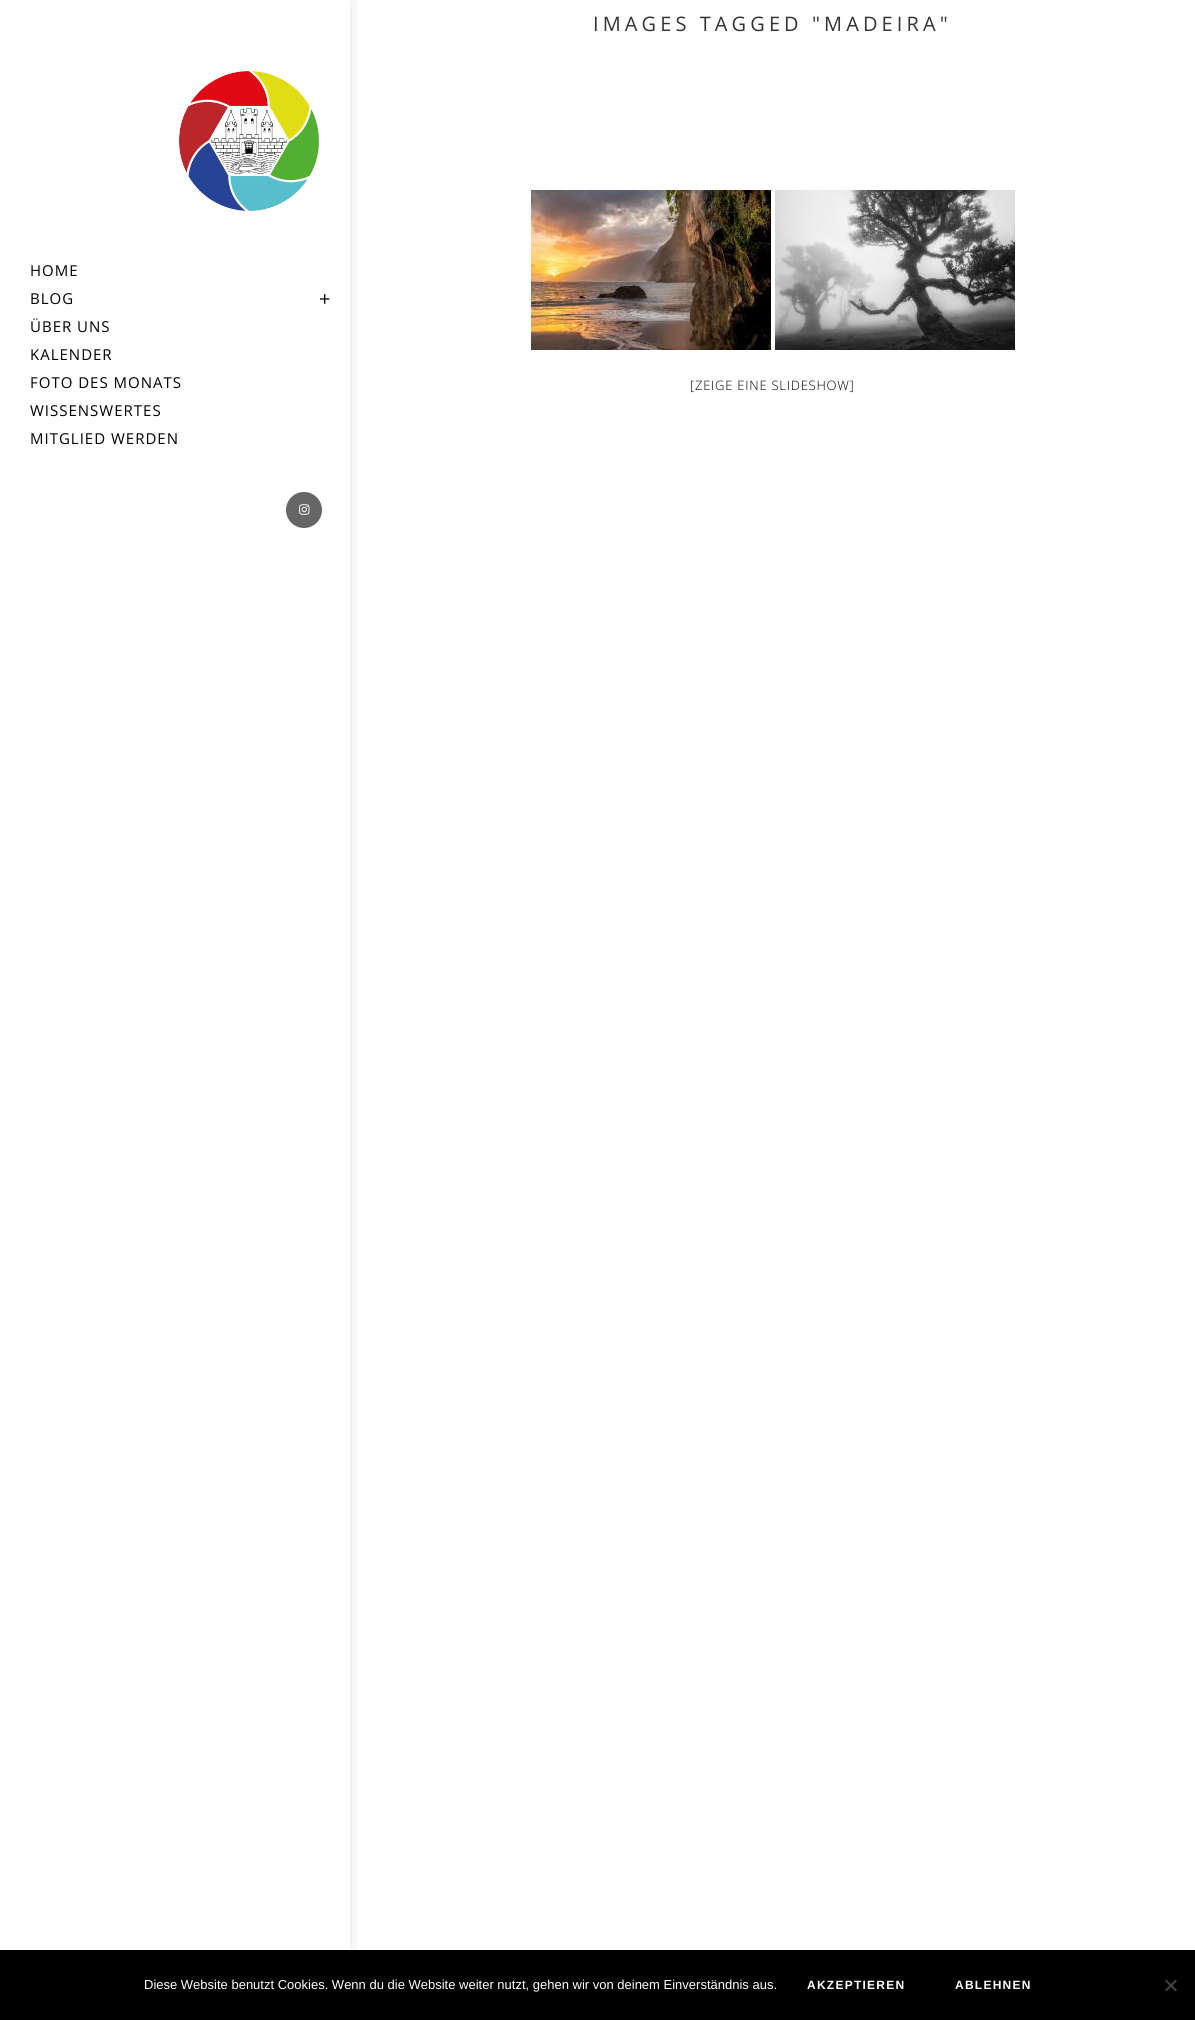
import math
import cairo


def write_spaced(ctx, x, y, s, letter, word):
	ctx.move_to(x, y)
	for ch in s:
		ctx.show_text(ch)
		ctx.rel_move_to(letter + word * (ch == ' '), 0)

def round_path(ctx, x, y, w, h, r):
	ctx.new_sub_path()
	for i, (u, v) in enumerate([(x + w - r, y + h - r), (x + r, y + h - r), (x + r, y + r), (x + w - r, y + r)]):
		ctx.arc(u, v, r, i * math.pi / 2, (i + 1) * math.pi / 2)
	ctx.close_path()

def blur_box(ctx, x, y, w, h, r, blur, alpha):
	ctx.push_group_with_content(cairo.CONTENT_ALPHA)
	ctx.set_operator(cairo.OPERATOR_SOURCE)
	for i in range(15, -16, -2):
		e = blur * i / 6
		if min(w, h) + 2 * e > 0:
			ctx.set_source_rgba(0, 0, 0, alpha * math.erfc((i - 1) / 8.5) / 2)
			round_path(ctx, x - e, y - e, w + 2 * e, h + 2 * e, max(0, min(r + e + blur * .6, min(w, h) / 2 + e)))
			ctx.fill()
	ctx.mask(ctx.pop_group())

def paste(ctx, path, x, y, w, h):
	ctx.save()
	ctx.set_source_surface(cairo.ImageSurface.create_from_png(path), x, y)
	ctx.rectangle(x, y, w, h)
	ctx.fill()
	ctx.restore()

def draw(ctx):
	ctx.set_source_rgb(1, 1, 1)
	ctx.paint()
	ctx.save()
	ctx.rectangle(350, 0, 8, 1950)
	ctx.clip()
	ctx.set_source_rgb(0, 0, 0)
	blur_box(ctx, 0, 0, 350, 2020, 0, 10, 0.1)
	ctx.restore()
	paste(ctx, 'media/1.png', 179, 71, 140, 140)
	ctx.select_font_face('Open Sans')
	ctx.set_font_size(15)
	ctx.set_source_rgb(0, 0, 0)
	write_spaced(ctx, 30, 276, 'HOME', 1, 0)
	write_spaced(ctx, 30, 304, 'BLOG', 1, 0)
	ctx.set_font_size(20)
	write_spaced(ctx, 319, 306, '+', 1, 0)
	ctx.set_font_size(15)
	for x, y, s in [
		(30, 332, 'ÜBER UNS'),
		(30, 360, 'KALENDER'),
		(30, 388, 'FOTO DES MONATS'),
		(30, 416, 'WISSENSWERTES'),
		(30, 444, 'MITGLIED WERDEN'),
	]:
		write_spaced(ctx, x, y, s, 1, 0)
	ctx.set_source_rgb(0.4, 0.4, 0.4)
	ctx.new_path()
	ctx.arc(304, 510, 18, 0, 2 * math.pi)
	ctx.fill()
	paste(ctx, 'media/2.png', 299, 504, 11, 11)
	ctx.set_font_size(20)
	ctx.set_source_rgb(0.2, 0.2, 0.2)
	write_spaced(ctx, 593, 31, 'IMAGES TAGGED "MADEIRA"', 4.1, 0)
	paste(ctx, 'media/3.png', 531, 190, 240, 160)
	paste(ctx, 'media/4.png', 775, 190, 240, 160)
	ctx.select_font_face('Open Sans Light')
	ctx.set_font_size(13)
	ctx.set_source_rgb(0, 0, 0)
	write_spaced(ctx, 690, 390, '[ZEIGE EINE SLIDESHOW]', 0.75, 0)
	ctx.rectangle(0, 1950, 1195, 70)
	ctx.fill()
	ctx.select_font_face('Liberation Sans')
	ctx.set_source_rgb(1, 1, 1)
	ctx.move_to(144, 1989)
	ctx.show_text('Diese Website benutzt Cookies. Wenn du die Website weiter nutzt, gehen wir von deinem Einverständnis aus.')
	ctx.select_font_face('Liberation Sans', cairo.FONT_SLANT_NORMAL, cairo.FONT_WEIGHT_BOLD)
	ctx.set_font_size(12)
	write_spaced(ctx, 807, 1989, 'AKZEPTIEREN', 1.25, 0)
	write_spaced(ctx, 955, 1989, 'ABLEHNEN', 1.25, 0)
	ctx.set_source_rgb(0.251, 0.251, 0.251)
	ctx.new_path()
	ctx.move_to(1175.5, 1979.5)
	ctx.line_to(1177, 1981)
	ctx.line_to(1166.5, 1991.5)
	ctx.line_to(1165, 1990)
	ctx.close_path()
	ctx.fill()
	ctx.new_path()
	ctx.move_to(1165, 1981)
	ctx.line_to(1166.5, 1979.5)
	ctx.line_to(1177, 1990)
	ctx.line_to(1175.5, 1991.5)
	ctx.close_path()
	ctx.fill()


surface = cairo.ImageSurface(cairo.FORMAT_RGB24, 1195, 2020)
ctx = cairo.Context(surface)
options = cairo.FontOptions()
options.set_hint_metrics(cairo.HINT_METRICS_OFF)
options.set_hint_style(cairo.HINT_STYLE_NONE)
ctx.set_font_options(options)
ctx.set_miter_limit(4)
draw(ctx)
surface.write_to_png('image.png')
